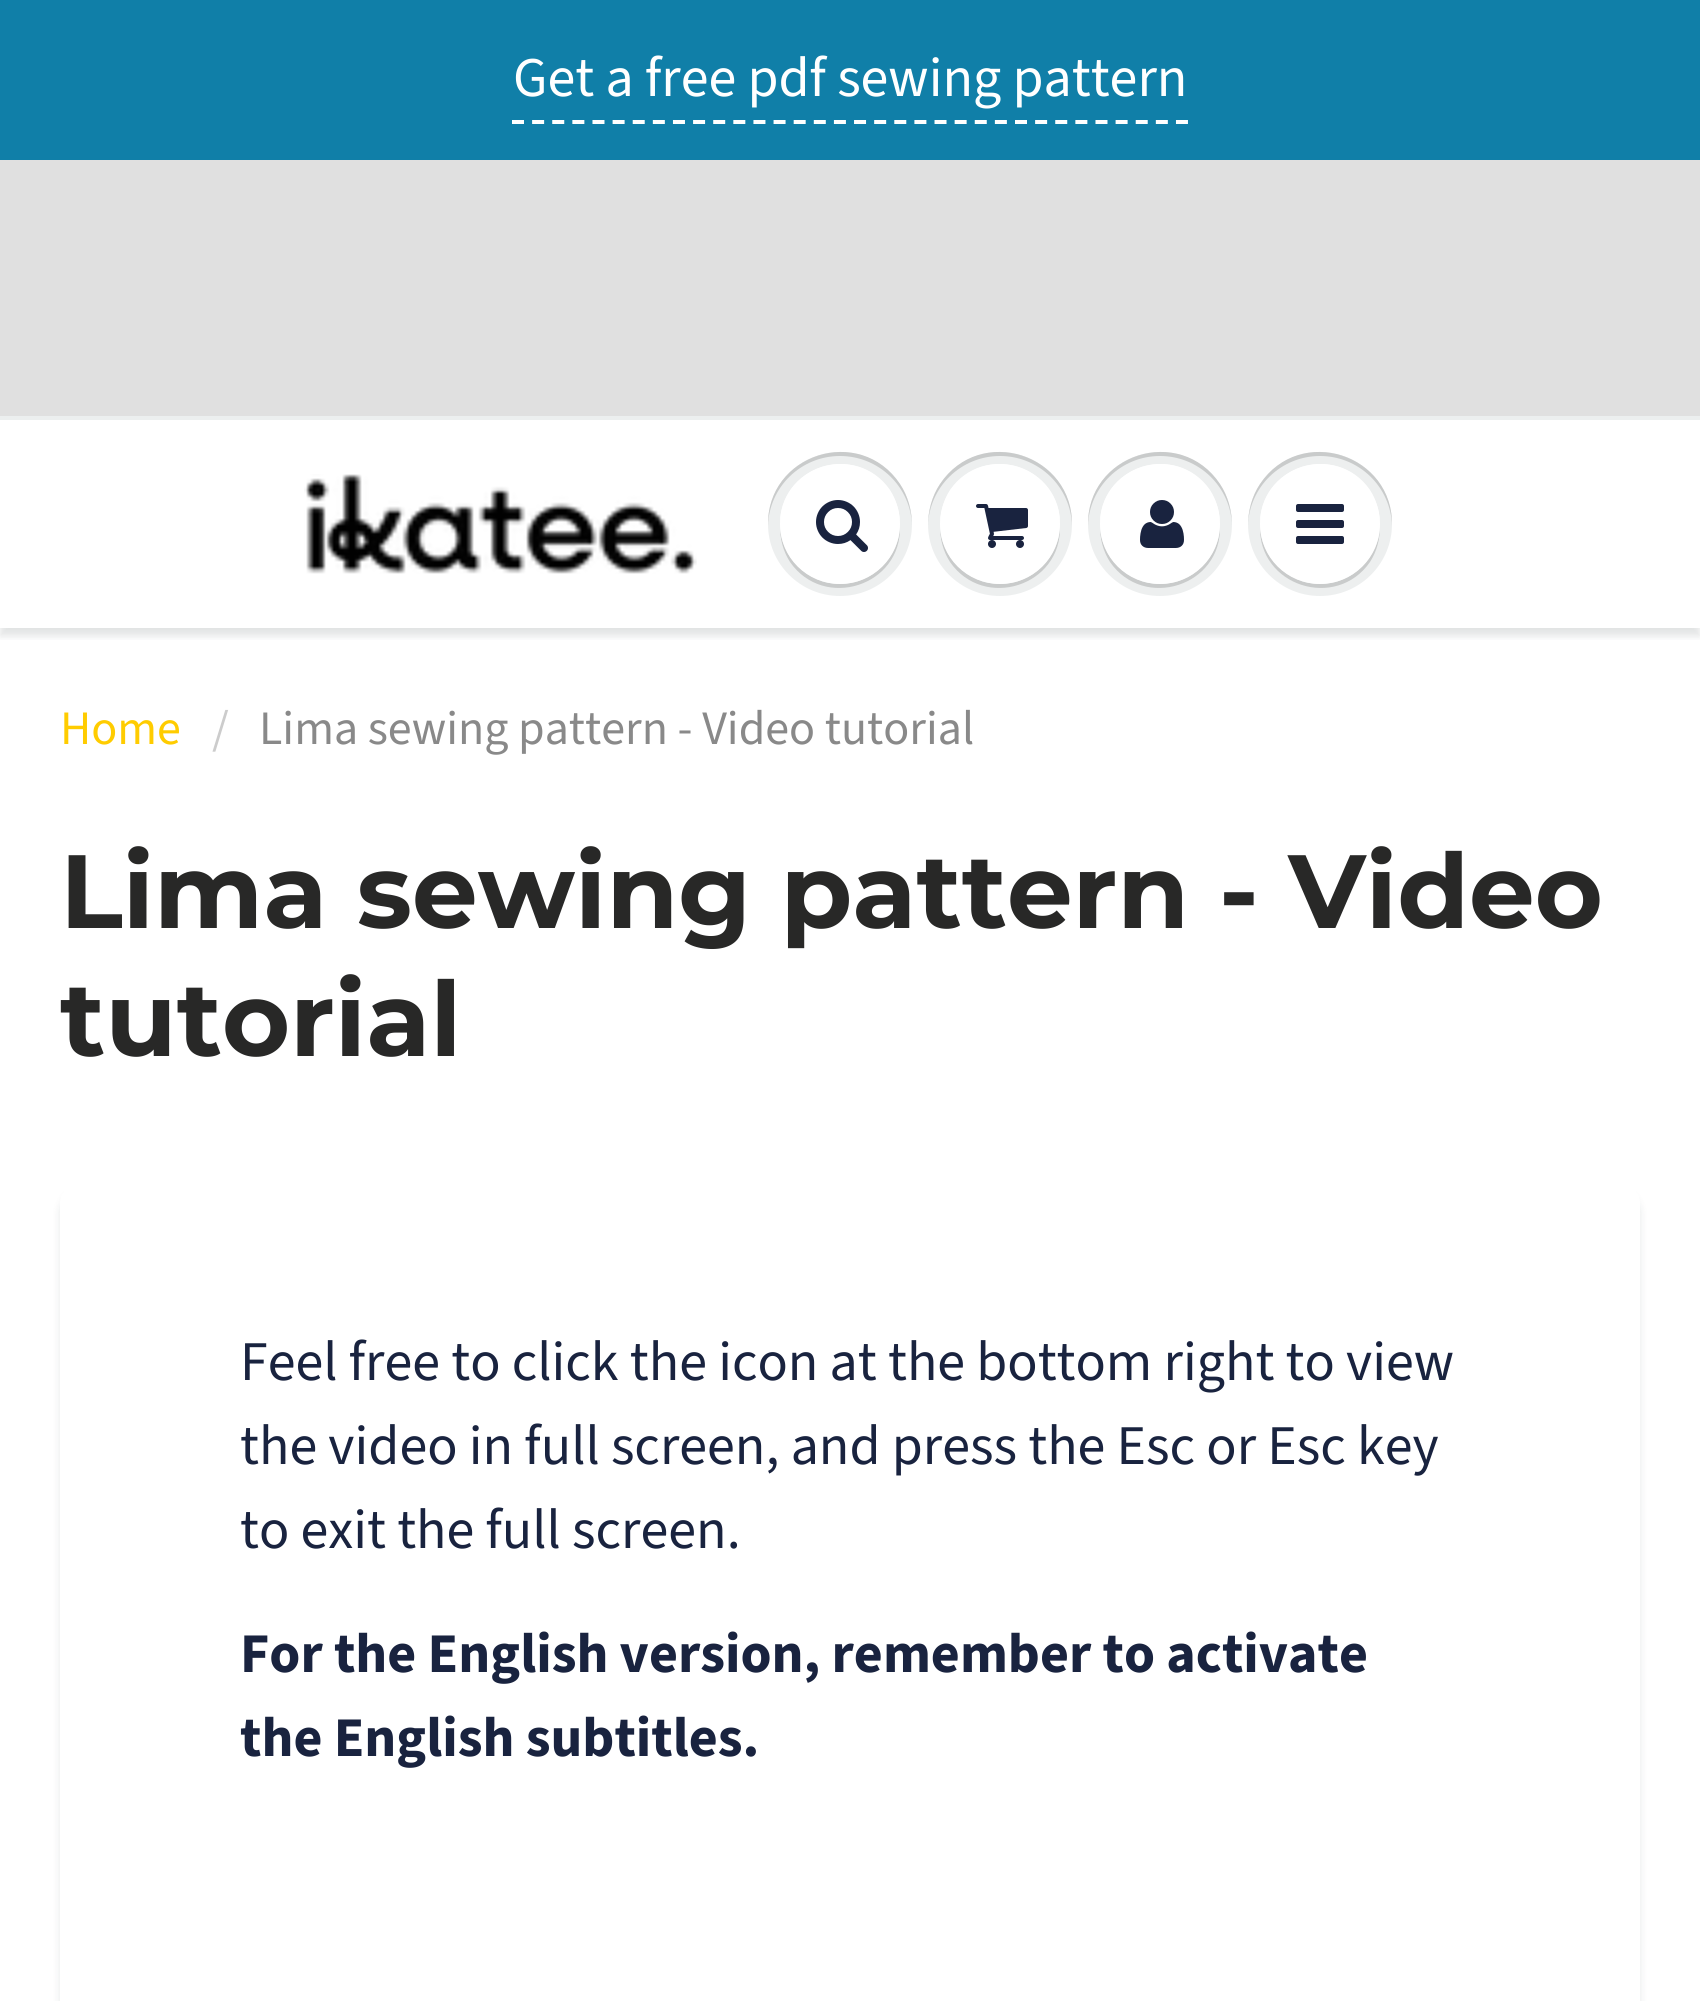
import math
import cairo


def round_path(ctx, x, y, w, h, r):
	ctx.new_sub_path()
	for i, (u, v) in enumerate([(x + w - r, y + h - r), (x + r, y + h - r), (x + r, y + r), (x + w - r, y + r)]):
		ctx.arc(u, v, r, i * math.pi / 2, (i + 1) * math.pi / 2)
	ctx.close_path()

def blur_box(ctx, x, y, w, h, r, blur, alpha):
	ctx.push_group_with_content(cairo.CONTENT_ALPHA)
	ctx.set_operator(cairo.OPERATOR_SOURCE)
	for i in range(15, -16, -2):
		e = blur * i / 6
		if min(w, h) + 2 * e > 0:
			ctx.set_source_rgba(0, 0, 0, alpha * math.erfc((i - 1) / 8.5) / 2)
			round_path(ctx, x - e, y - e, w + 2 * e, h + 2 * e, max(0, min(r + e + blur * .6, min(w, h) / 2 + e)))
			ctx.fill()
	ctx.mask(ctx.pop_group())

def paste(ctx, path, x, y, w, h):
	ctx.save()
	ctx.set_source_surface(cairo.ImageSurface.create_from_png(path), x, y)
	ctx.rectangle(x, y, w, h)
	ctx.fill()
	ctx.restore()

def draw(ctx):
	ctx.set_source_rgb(1, 1, 1)
	ctx.paint()
	ctx.set_source_rgb(0.063, 0.498, 0.659)
	ctx.rectangle(0, 0, 1700, 160)
	ctx.fill()
	ctx.select_font_face('Source Sans Pro')
	ctx.set_font_size(56)
	ctx.set_source_rgb(1, 1, 1)
	ctx.move_to(513, 96)
	ctx.show_text('Get a free pdf sewing pattern')
	ctx.new_path()
	ctx.move_to(512, 122)
	ctx.line_to(1188, 122)
	ctx.set_line_width(4)
	ctx.set_dash([12, 8.12])
	ctx.stroke()
	ctx.set_source_rgb(0.878, 0.878, 0.878)
	ctx.rectangle(0, 160, 1700, 256)
	ctx.fill()
	ctx.save()
	ctx.rectangle(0, 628, 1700, 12)
	ctx.clip()
	ctx.set_source_rgb(0.043, 0.098, 0.11)
	blur_box(ctx, 0, 424, 1700, 212, 0, 4, 0.12)
	ctx.restore()
	ctx.set_source_rgb(0.925, 0.937, 0.937)
	ctx.rectangle(0, 416, 1700, 4)
	ctx.fill()
	paste(ctx, 'media/1.png', 304, 474, 393, 100)
	ctx.set_source_rgb(0.929, 0.937, 0.937)
	ctx.arc(840, 524, 72, 0, 2 * math.pi)
	ctx.fill()
	ctx.set_source_rgb(0.788, 0.796, 0.796)
	ctx.new_path()
	ctx.move_to(780, 526)
	ctx.curve_to(780, 539, 783, 551, 790, 562)
	ctx.curve_to(824, 611, 902, 586, 900, 526)
	ctx.curve_to(899, 558, 872, 584, 840, 584)
	ctx.curve_to(808, 584, 781, 558, 780, 526)
	ctx.close_path()
	ctx.fill()
	ctx.new_path()
	ctx.move_to(840, 456)
	ctx.curve_to(879, 456, 911, 487, 912, 526)
	ctx.curve_to(912, 511, 908, 496, 900, 484)
	ctx.curve_to(860, 424, 766, 454, 768, 526)
	ctx.curve_to(769, 487, 801, 456, 840, 456)
	ctx.close_path()
	ctx.fill()
	ctx.set_source_rgb(1, 1, 1)
	ctx.arc(840, 524, 60, 0, 2 * math.pi)
	ctx.fill()
	ctx.new_path()
	ctx.move_to(840, 468)
	ctx.curve_to(872, 468, 899, 494, 900, 526)
	ctx.curve_to(900, 513, 897, 501, 890, 490)
	ctx.curve_to(856, 441, 778, 466, 780, 526)
	ctx.curve_to(781, 494, 808, 468, 840, 468)
	ctx.close_path()
	ctx.fill()
	paste(ctx, 'media/2.png', 816, 500, 52, 52)
	ctx.set_source_rgb(0.929, 0.937, 0.937)
	ctx.arc(1000, 524, 72, 0, 2 * math.pi)
	ctx.fill()
	ctx.set_source_rgb(0.788, 0.796, 0.796)
	ctx.new_path()
	ctx.move_to(940, 526)
	ctx.curve_to(940, 539, 943, 551, 950, 562)
	ctx.curve_to(984, 611, 1062, 586, 1060, 526)
	ctx.curve_to(1059, 558, 1032, 584, 1000, 584)
	ctx.curve_to(968, 584, 941, 558, 940, 526)
	ctx.close_path()
	ctx.fill()
	ctx.new_path()
	ctx.move_to(1000, 456)
	ctx.curve_to(1039, 456, 1071, 487, 1072, 526)
	ctx.curve_to(1074, 454, 980, 424, 940, 484)
	ctx.curve_to(932, 496, 928, 511, 928, 526)
	ctx.curve_to(929, 487, 961, 456, 1000, 456)
	ctx.close_path()
	ctx.fill()
	ctx.set_source_rgb(1, 1, 1)
	ctx.arc(1000, 524, 60, 0, 2 * math.pi)
	ctx.fill()
	ctx.new_path()
	ctx.move_to(1000, 468)
	ctx.curve_to(1032, 468, 1059, 494, 1060, 526)
	ctx.curve_to(1062, 466, 984, 441, 950, 490)
	ctx.curve_to(943, 501, 940, 513, 940, 526)
	ctx.curve_to(941, 494, 968, 468, 1000, 468)
	ctx.close_path()
	ctx.fill()
	paste(ctx, 'media/3.png', 976, 504, 52, 44)
	ctx.set_source_rgb(0.929, 0.937, 0.937)
	ctx.arc(1160, 524, 72, 0, 2 * math.pi)
	ctx.fill()
	ctx.set_source_rgb(0.788, 0.796, 0.796)
	ctx.new_path()
	ctx.move_to(1100, 526)
	ctx.curve_to(1100, 539, 1103, 551, 1110, 562)
	ctx.curve_to(1144, 611, 1222, 586, 1220, 526)
	ctx.curve_to(1219, 558, 1192, 584, 1160, 584)
	ctx.curve_to(1128, 584, 1101, 558, 1100, 526)
	ctx.close_path()
	ctx.fill()
	ctx.new_path()
	ctx.move_to(1160, 456)
	ctx.curve_to(1199, 456, 1231, 487, 1232, 526)
	ctx.curve_to(1232, 511, 1228, 496, 1220, 484)
	ctx.curve_to(1180, 424, 1086, 454, 1088, 526)
	ctx.curve_to(1089, 487, 1121, 456, 1160, 456)
	ctx.close_path()
	ctx.fill()
	ctx.set_source_rgb(1, 1, 1)
	ctx.arc(1160, 524, 60, 0, 2 * math.pi)
	ctx.fill()
	ctx.new_path()
	ctx.move_to(1160, 468)
	ctx.curve_to(1192, 468, 1219, 494, 1220, 526)
	ctx.curve_to(1220, 513, 1217, 501, 1210, 490)
	ctx.curve_to(1176, 441, 1098, 466, 1100, 526)
	ctx.curve_to(1101, 494, 1128, 468, 1160, 468)
	ctx.close_path()
	ctx.fill()
	paste(ctx, 'media/4.png', 1140, 500, 44, 48)
	ctx.set_source_rgb(0.929, 0.937, 0.937)
	ctx.arc(1320, 524, 72, 0, 2 * math.pi)
	ctx.fill()
	ctx.set_source_rgb(0.788, 0.796, 0.796)
	ctx.new_path()
	ctx.move_to(1260, 526)
	ctx.curve_to(1258, 586, 1336, 611, 1370, 562)
	ctx.curve_to(1377, 551, 1380, 539, 1380, 526)
	ctx.curve_to(1379, 558, 1352, 584, 1320, 584)
	ctx.curve_to(1288, 584, 1261, 558, 1260, 526)
	ctx.close_path()
	ctx.fill()
	ctx.new_path()
	ctx.move_to(1320, 456)
	ctx.curve_to(1359, 456, 1391, 487, 1392, 526)
	ctx.curve_to(1394, 454, 1300, 424, 1260, 484)
	ctx.curve_to(1252, 496, 1248, 511, 1248, 526)
	ctx.curve_to(1249, 487, 1281, 456, 1320, 456)
	ctx.close_path()
	ctx.fill()
	ctx.set_source_rgb(1, 1, 1)
	ctx.arc(1320, 524, 60, 0, 2 * math.pi)
	ctx.fill()
	ctx.new_path()
	ctx.move_to(1320, 468)
	ctx.curve_to(1352, 468, 1379, 494, 1380, 526)
	ctx.curve_to(1380, 513, 1377, 501, 1370, 490)
	ctx.curve_to(1336, 441, 1258, 466, 1260, 526)
	ctx.curve_to(1261, 494, 1288, 468, 1320, 468)
	ctx.close_path()
	ctx.fill()
	paste(ctx, 'media/5.png', 1296, 504, 48, 40)
	ctx.set_font_size(48)
	ctx.set_source_rgb(1, 0.8, 0)
	ctx.move_to(60, 744)
	ctx.show_text('Home')
	ctx.set_source_rgb(0.8, 0.8, 0.8)
	ctx.move_to(212, 744)
	ctx.show_text('/')
	ctx.set_source_rgb(0.537, 0.537, 0.537)
	ctx.move_to(259, 744)
	ctx.show_text('Lima sewing pattern - Video tutorial')
	ctx.select_font_face('Montserrat', cairo.FONT_SLANT_NORMAL, cairo.FONT_WEIGHT_BOLD)
	ctx.set_font_size(104)
	ctx.set_source_rgb(0.157, 0.157, 0.153)
	ctx.move_to(60, 928)
	ctx.show_text('Lima sewing pattern - Video')
	ctx.move_to(60, 1056)
	ctx.show_text('tutorial')
	ctx.save()
	ctx.set_fill_rule(cairo.FILL_RULE_EVEN_ODD)
	ctx.new_path()
	ctx.move_to(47, 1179)
	ctx.line_to(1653, 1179)
	ctx.line_to(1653, 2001)
	ctx.line_to(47, 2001)
	ctx.close_path()
	ctx.move_to(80, 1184)
	ctx.line_to(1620, 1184)
	ctx.curve_to(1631, 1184, 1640, 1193, 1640, 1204)
	ctx.line_to(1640, 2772)
	ctx.curve_to(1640, 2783, 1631, 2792, 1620, 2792)
	ctx.line_to(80, 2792)
	ctx.curve_to(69, 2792, 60, 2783, 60, 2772)
	ctx.line_to(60, 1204)
	ctx.curve_to(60, 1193, 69, 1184, 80, 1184)
	ctx.close_path()
	ctx.clip()
	ctx.set_source_rgb(0.043, 0.098, 0.11)
	blur_box(ctx, 60, 1192, 1580, 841, 20, 4, 0.1)
	ctx.restore()
	ctx.select_font_face('Source Sans Pro')
	ctx.set_font_size(56)
	ctx.set_source_rgb(0.098, 0.137, 0.247)
	for x, y, s in [
		(240, 1380, 'Feel free to click the icon at the bottom right to view'),
		(240, 1464, 'the video in full screen, and press the Esc or Esc key'),
		(240, 1548, 'to exit the full screen.'),
	]:
		ctx.move_to(x, y)
		ctx.show_text(s)
	ctx.select_font_face('Source Sans Pro', cairo.FONT_SLANT_NORMAL, cairo.FONT_WEIGHT_BOLD)
	ctx.move_to(240, 1672)
	ctx.show_text('For the English version, remember to activate')
	ctx.move_to(240, 1756)
	ctx.show_text('the English subtitles.')


surface = cairo.ImageSurface(cairo.FORMAT_RGB24, 1700, 2001)
ctx = cairo.Context(surface)
options = cairo.FontOptions()
options.set_hint_metrics(cairo.HINT_METRICS_OFF)
options.set_hint_style(cairo.HINT_STYLE_NONE)
ctx.set_font_options(options)
ctx.set_miter_limit(4)
draw(ctx)
surface.write_to_png('image.png')
